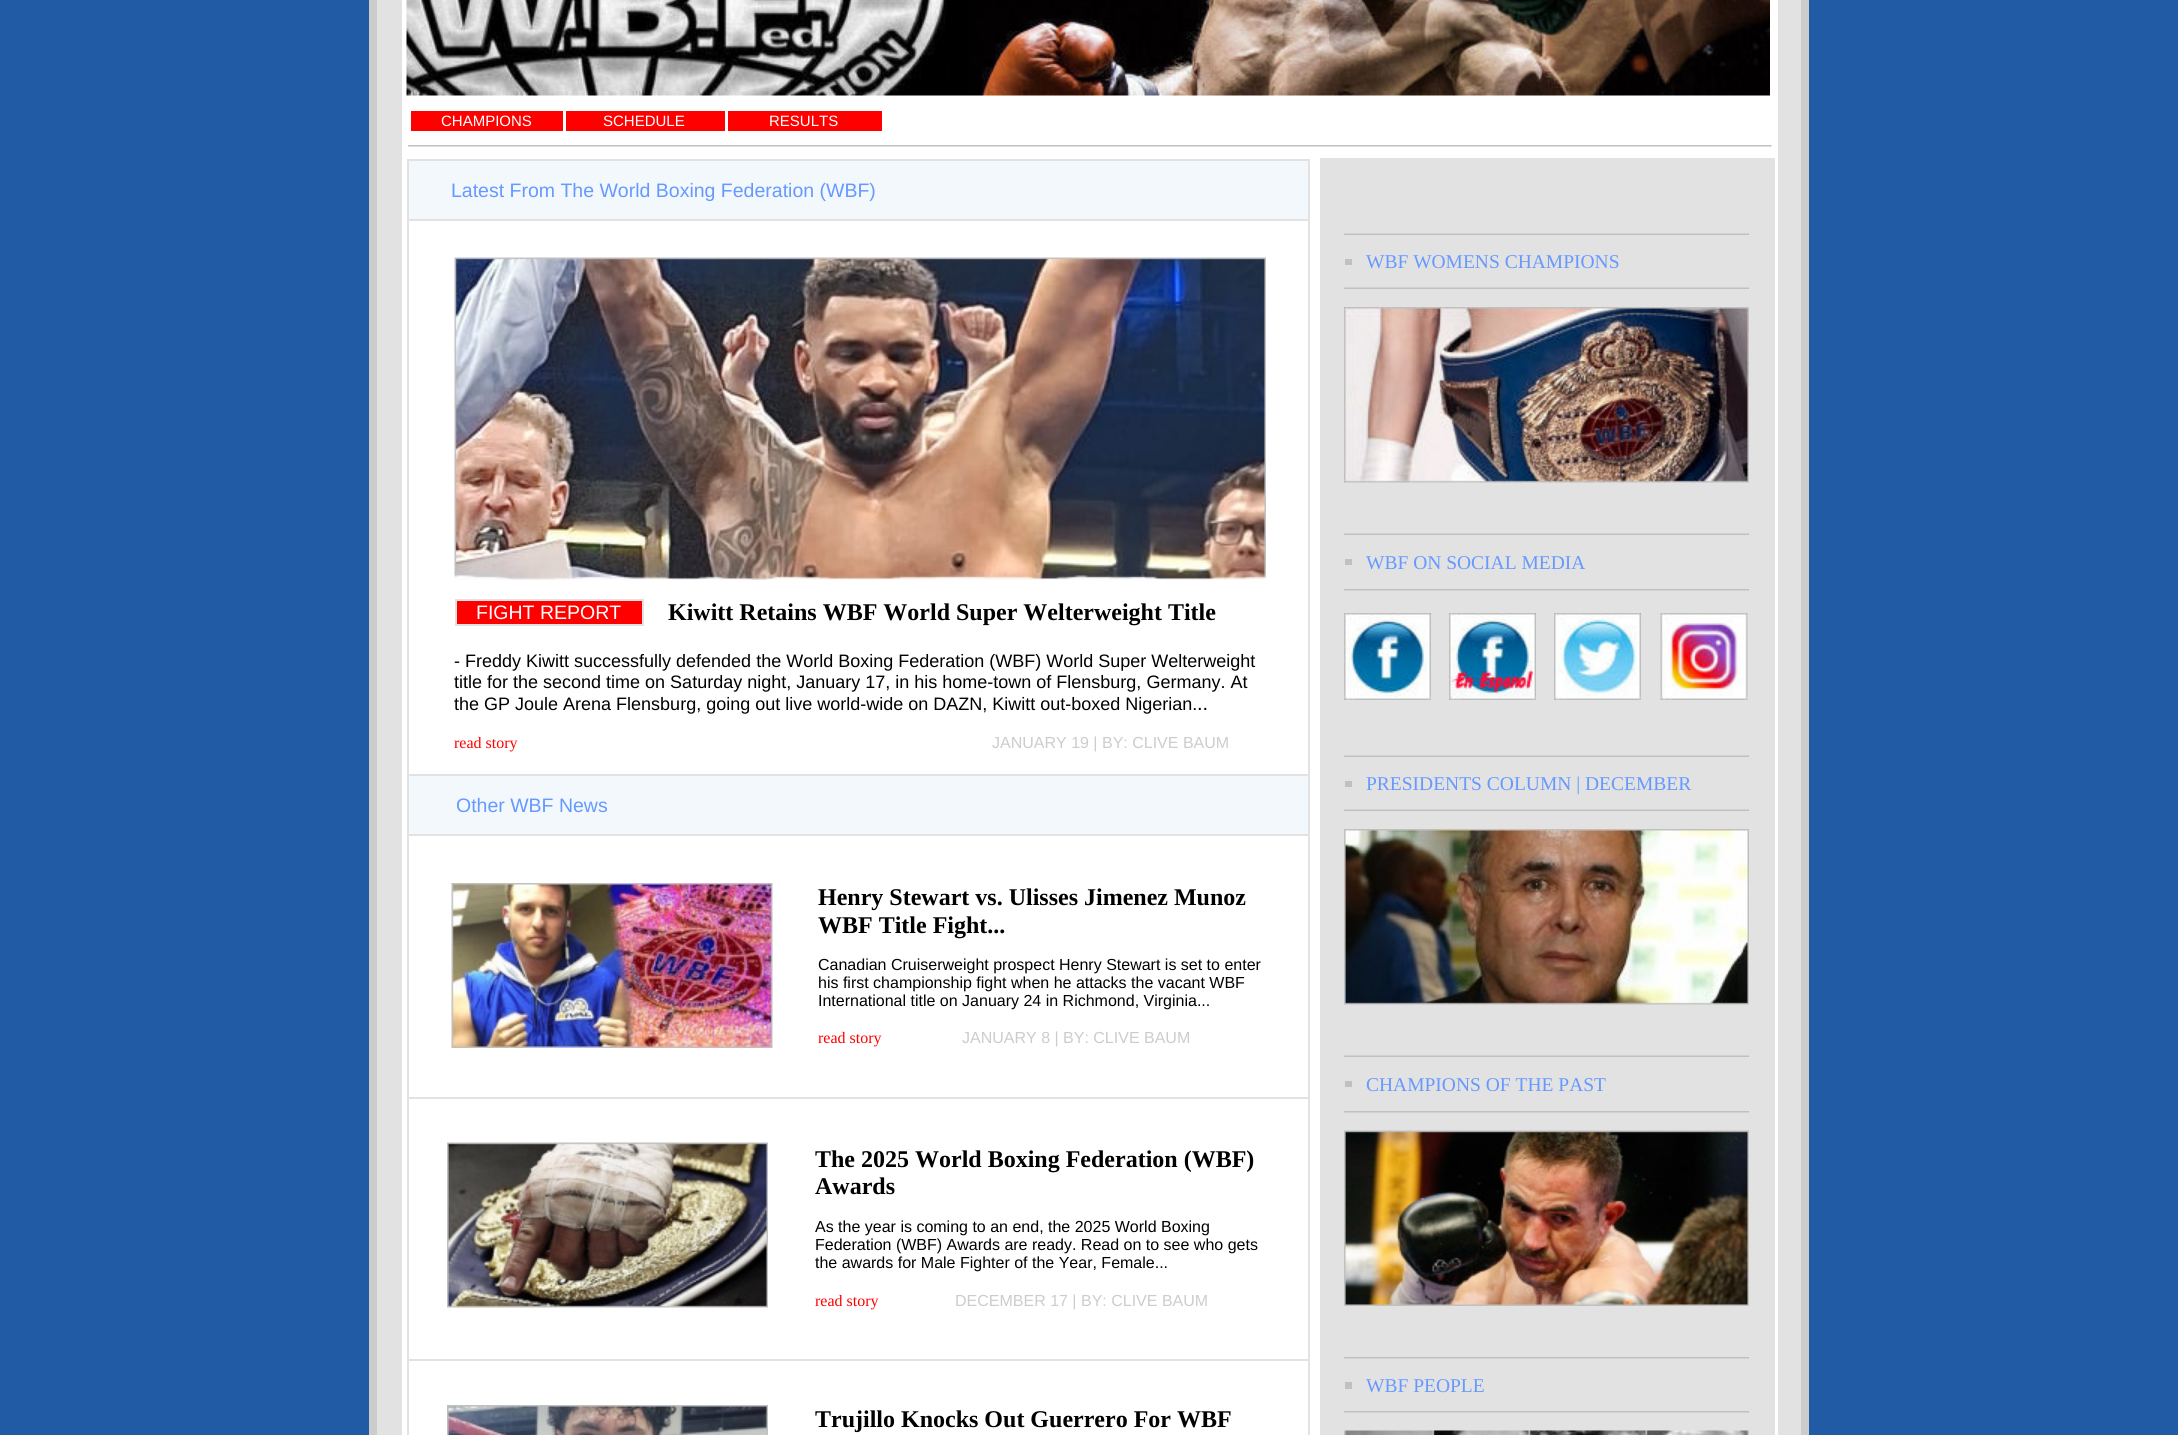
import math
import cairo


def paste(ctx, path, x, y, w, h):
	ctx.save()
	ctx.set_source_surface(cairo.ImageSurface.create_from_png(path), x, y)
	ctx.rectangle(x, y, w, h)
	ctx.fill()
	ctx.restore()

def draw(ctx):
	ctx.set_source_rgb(0.129, 0.357, 0.647)
	ctx.paint()
	ctx.set_source_rgb(0.886, 0.886, 0.886)
	ctx.rectangle(373, -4, 1432, 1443)
	ctx.fill_preserve()
	ctx.set_source_rgb(0.8, 0.8, 0.8)
	ctx.set_line_width(8)
	ctx.stroke()
	ctx.set_source_rgb(1, 1, 1)
	ctx.rectangle(402, 0, 1376, 1435)
	ctx.fill()
	paste(ctx, 'media/1.png', 406, 0, 1364, 96)
	ctx.set_source_rgb(1, 0, 0)
	ctx.rectangle(411, 111, 152, 20)
	ctx.fill()
	ctx.select_font_face('Liberation Sans')
	ctx.set_font_size(15)
	ctx.set_source_rgb(1, 1, 1)
	ctx.move_to(441, 126)
	ctx.show_text('CHAMPIONS')
	ctx.set_source_rgb(1, 0, 0)
	ctx.rectangle(566, 111, 159, 20)
	ctx.fill()
	ctx.set_source_rgb(1, 1, 1)
	ctx.move_to(603, 126)
	ctx.show_text('SCHEDULE')
	ctx.set_source_rgb(1, 0, 0)
	ctx.rectangle(728, 111, 154, 20)
	ctx.fill()
	ctx.set_source_rgb(1, 1, 1)
	ctx.move_to(769, 126)
	ctx.show_text('RESULTS')
	paste(ctx, 'media/2.png', 408, 145, 1364, 2)
	ctx.set_source_rgb(0.886, 0.886, 0.886)
	ctx.rectangle(407, 159, 903, 2)
	ctx.rectangle(1308, 159, 2, 1276)
	ctx.rectangle(407, 159, 2, 1276)
	ctx.fill()
	ctx.set_source_rgb(0.953, 0.969, 0.992)
	ctx.rectangle(409, 161, 899, 58)
	ctx.fill()
	ctx.set_font_size(19.5)
	ctx.set_source_rgb(0.4, 0.6, 1)
	ctx.move_to(451, 197)
	ctx.show_text('Latest From The World Boxing Federation (WBF)')
	ctx.set_source_rgb(0.886, 0.886, 0.886)
	ctx.rectangle(407, 219, 903, 2)
	ctx.fill()
	paste(ctx, 'media/3.png', 454, 257, 812, 323)
	ctx.set_source_rgb(1, 0, 0)
	ctx.rectangle(456, 600, 187, 25)
	ctx.fill_preserve()
	ctx.set_source_rgb(0.886, 0.886, 0.886)
	ctx.set_line_width(2)
	ctx.stroke()
	ctx.set_source_rgb(1, 1, 1)
	ctx.move_to(476, 619)
	ctx.show_text('FIGHT REPORT')
	ctx.select_font_face('Liberation Serif', cairo.FONT_SLANT_NORMAL, cairo.FONT_WEIGHT_BOLD)
	ctx.set_font_size(24)
	ctx.set_source_rgb(0, 0, 0)
	ctx.move_to(668, 620)
	ctx.show_text('Kiwitt Retains WBF World Super Welterweight Title')
	ctx.select_font_face('Liberation Sans')
	ctx.set_font_size(18)
	for x, y, s in [
		(454, 667, '- Freddy Kiwitt successfully defended the World Boxing Federation (WBF) World Super Welterweight'),
		(454, 688, 'title for the second time on Saturday night, January 17, in his home-town of Flensburg, Germany. At'),
		(454, 710, 'the GP Joule Arena Flensburg, going out live world-wide on DAZN, Kiwitt out-boxed Nigerian.'),
	]:
		ctx.move_to(x, y)
		ctx.show_text(s)
	ctx.set_font_size(20)
	ctx.move_to(1197, 710)
	ctx.show_text('..')
	ctx.select_font_face('Liberation Serif')
	ctx.set_font_size(16)
	ctx.set_source_rgb(1, 0, 0)
	ctx.move_to(454, 748)
	ctx.show_text('read story')
	ctx.select_font_face('Liberation Sans')
	ctx.set_source_rgb(0.8, 0.8, 0.8)
	ctx.move_to(992, 748)
	ctx.show_text('JANUARY 19 | BY: CLIVE BAUM')
	ctx.set_source_rgb(0.953, 0.969, 0.992)
	ctx.rectangle(409, 776, 899, 58)
	ctx.fill()
	ctx.set_source_rgb(0.886, 0.886, 0.886)
	ctx.rectangle(407, 774, 903, 2)
	ctx.fill()
	ctx.set_font_size(19.5)
	ctx.set_source_rgb(0.4, 0.6, 1)
	ctx.move_to(456, 812)
	ctx.show_text('Other WBF News')
	ctx.set_source_rgb(0.886, 0.886, 0.886)
	ctx.rectangle(407, 834, 903, 2)
	ctx.fill()
	paste(ctx, 'media/4.png', 451, 883, 322, 165)
	ctx.select_font_face('Liberation Serif', cairo.FONT_SLANT_NORMAL, cairo.FONT_WEIGHT_BOLD)
	ctx.set_font_size(24)
	ctx.set_source_rgb(0, 0, 0)
	ctx.move_to(818, 905)
	ctx.show_text('Henry Stewart vs. Ulisses Jimenez Munoz')
	ctx.move_to(818, 933)
	ctx.show_text('WBF Title Fight...')
	ctx.select_font_face('Liberation Sans')
	ctx.set_font_size(16)
	for x, y, s in [
		(818, 970, 'Canadian Cruiserweight prospect Henry Stewart is set to enter'),
		(818, 988, 'his first championship fight when he attacks the vacant WBF'),
		(818, 1006, 'International title on January 24 in Richmond, Virginia...'),
	]:
		ctx.move_to(x, y)
		ctx.show_text(s)
	ctx.select_font_face('Liberation Serif')
	ctx.set_source_rgb(1, 0, 0)
	ctx.move_to(818, 1043)
	ctx.show_text('read story')
	ctx.select_font_face('Liberation Sans')
	ctx.set_source_rgb(0.8, 0.8, 0.8)
	ctx.move_to(962, 1043)
	ctx.show_text('JANUARY 8 | BY: CLIVE BAUM')
	ctx.set_source_rgb(0.886, 0.886, 0.886)
	ctx.rectangle(407, 1097, 903, 2)
	ctx.fill()
	paste(ctx, 'media/5.png', 447, 1142, 321, 166)
	ctx.select_font_face('Liberation Serif', cairo.FONT_SLANT_NORMAL, cairo.FONT_WEIGHT_BOLD)
	ctx.set_font_size(24)
	ctx.set_source_rgb(0, 0, 0)
	ctx.move_to(815, 1167)
	ctx.show_text('The 2025 World Boxing Federation (WBF)')
	ctx.move_to(815, 1194)
	ctx.show_text('Awards')
	ctx.select_font_face('Liberation Sans')
	ctx.set_font_size(16)
	for x, y, s in [
		(815, 1232, 'As the year is coming to an end, the 2025 World Boxing'),
		(815, 1250, 'Federation (WBF) Awards are ready. Read on to see who gets'),
		(815, 1268, 'the awards for Male Fighter of the Year, Female...'),
	]:
		ctx.move_to(x, y)
		ctx.show_text(s)
	ctx.select_font_face('Liberation Serif')
	ctx.set_source_rgb(1, 0, 0)
	ctx.move_to(815, 1306)
	ctx.show_text('read story')
	ctx.select_font_face('Liberation Sans')
	ctx.set_source_rgb(0.8, 0.8, 0.8)
	ctx.move_to(955, 1306)
	ctx.show_text('DECEMBER 17 | BY: CLIVE BAUM')
	ctx.set_source_rgb(0.886, 0.886, 0.886)
	ctx.rectangle(407, 1359, 903, 2)
	ctx.fill()
	paste(ctx, 'media/6.png', 447, 1405, 321, 30)
	ctx.select_font_face('Liberation Serif', cairo.FONT_SLANT_NORMAL, cairo.FONT_WEIGHT_BOLD)
	ctx.set_font_size(24)
	ctx.set_source_rgb(0, 0, 0)
	ctx.move_to(815, 1427)
	ctx.show_text('Trujillo Knocks Out Guerrero For WBF')
	ctx.set_source_rgb(0.886, 0.886, 0.886)
	ctx.rectangle(1320, 158, 455, 1277)
	ctx.fill()
	paste(ctx, 'media/7.png', 1344, 233, 405, 2)
	ctx.set_source_rgb(0.753, 0.753, 0.753)
	ctx.rectangle(1345, 259, 7, 6)
	ctx.fill()
	ctx.select_font_face('Liberation Serif')
	ctx.set_font_size(19.5)
	ctx.set_source_rgb(0.4, 0.6, 1)
	ctx.move_to(1366, 268)
	ctx.show_text('WBF WOMENS CHAMPIONS')
	paste(ctx, 'media/7.png', 1344, 287, 405, 2)
	paste(ctx, 'media/8.png', 1344, 307, 405, 176)
	paste(ctx, 'media/7.png', 1344, 533, 405, 2)
	ctx.set_source_rgb(0.753, 0.753, 0.753)
	ctx.rectangle(1345, 559, 7, 6)
	ctx.fill()
	ctx.set_source_rgb(0.4, 0.6, 1)
	ctx.move_to(1366, 569)
	ctx.show_text('WBF ON SOCIAL MEDIA')
	paste(ctx, 'media/9.png', 1344, 589, 405, 2)
	paste(ctx, 'media/10.png', 1344, 613, 87, 87)
	paste(ctx, 'media/11.png', 1449, 613, 87, 87)
	paste(ctx, 'media/12.png', 1554, 613, 87, 87)
	paste(ctx, 'media/13.png', 1660, 613, 88, 87)
	paste(ctx, 'media/7.png', 1344, 755, 405, 2)
	ctx.set_source_rgb(0.753, 0.753, 0.753)
	ctx.rectangle(1345, 781, 7, 6)
	ctx.fill()
	ctx.set_source_rgb(0.4, 0.6, 1)
	ctx.move_to(1366, 790)
	ctx.show_text('PRESIDENTS COLUMN | DECEMBER')
	paste(ctx, 'media/7.png', 1344, 809, 405, 2)
	paste(ctx, 'media/14.png', 1344, 829, 405, 176)
	paste(ctx, 'media/7.png', 1344, 1055, 405, 2)
	ctx.set_source_rgb(0.753, 0.753, 0.753)
	ctx.rectangle(1345, 1081, 7, 6)
	ctx.fill()
	ctx.set_source_rgb(0.4, 0.6, 1)
	ctx.move_to(1366, 1091)
	ctx.show_text('CHAMPIONS OF THE PAST')
	paste(ctx, 'media/9.png', 1344, 1111, 405, 2)
	paste(ctx, 'media/15.png', 1344, 1130, 405, 176)
	paste(ctx, 'media/9.png', 1344, 1357, 405, 2)
	ctx.set_source_rgb(0.753, 0.753, 0.753)
	ctx.rectangle(1345, 1382, 7, 7)
	ctx.fill()
	ctx.set_source_rgb(0.4, 0.6, 1)
	ctx.move_to(1366, 1392)
	ctx.show_text('WBF PEOPLE')
	paste(ctx, 'media/9.png', 1344, 1411, 405, 2)
	paste(ctx, 'media/16.png', 1344, 1430, 405, 5)


surface = cairo.ImageSurface(cairo.FORMAT_RGB24, 2178, 1435)
ctx = cairo.Context(surface)
options = cairo.FontOptions()
options.set_hint_metrics(cairo.HINT_METRICS_OFF)
options.set_hint_style(cairo.HINT_STYLE_NONE)
ctx.set_font_options(options)
ctx.set_miter_limit(4)
draw(ctx)
surface.write_to_png('image.png')
